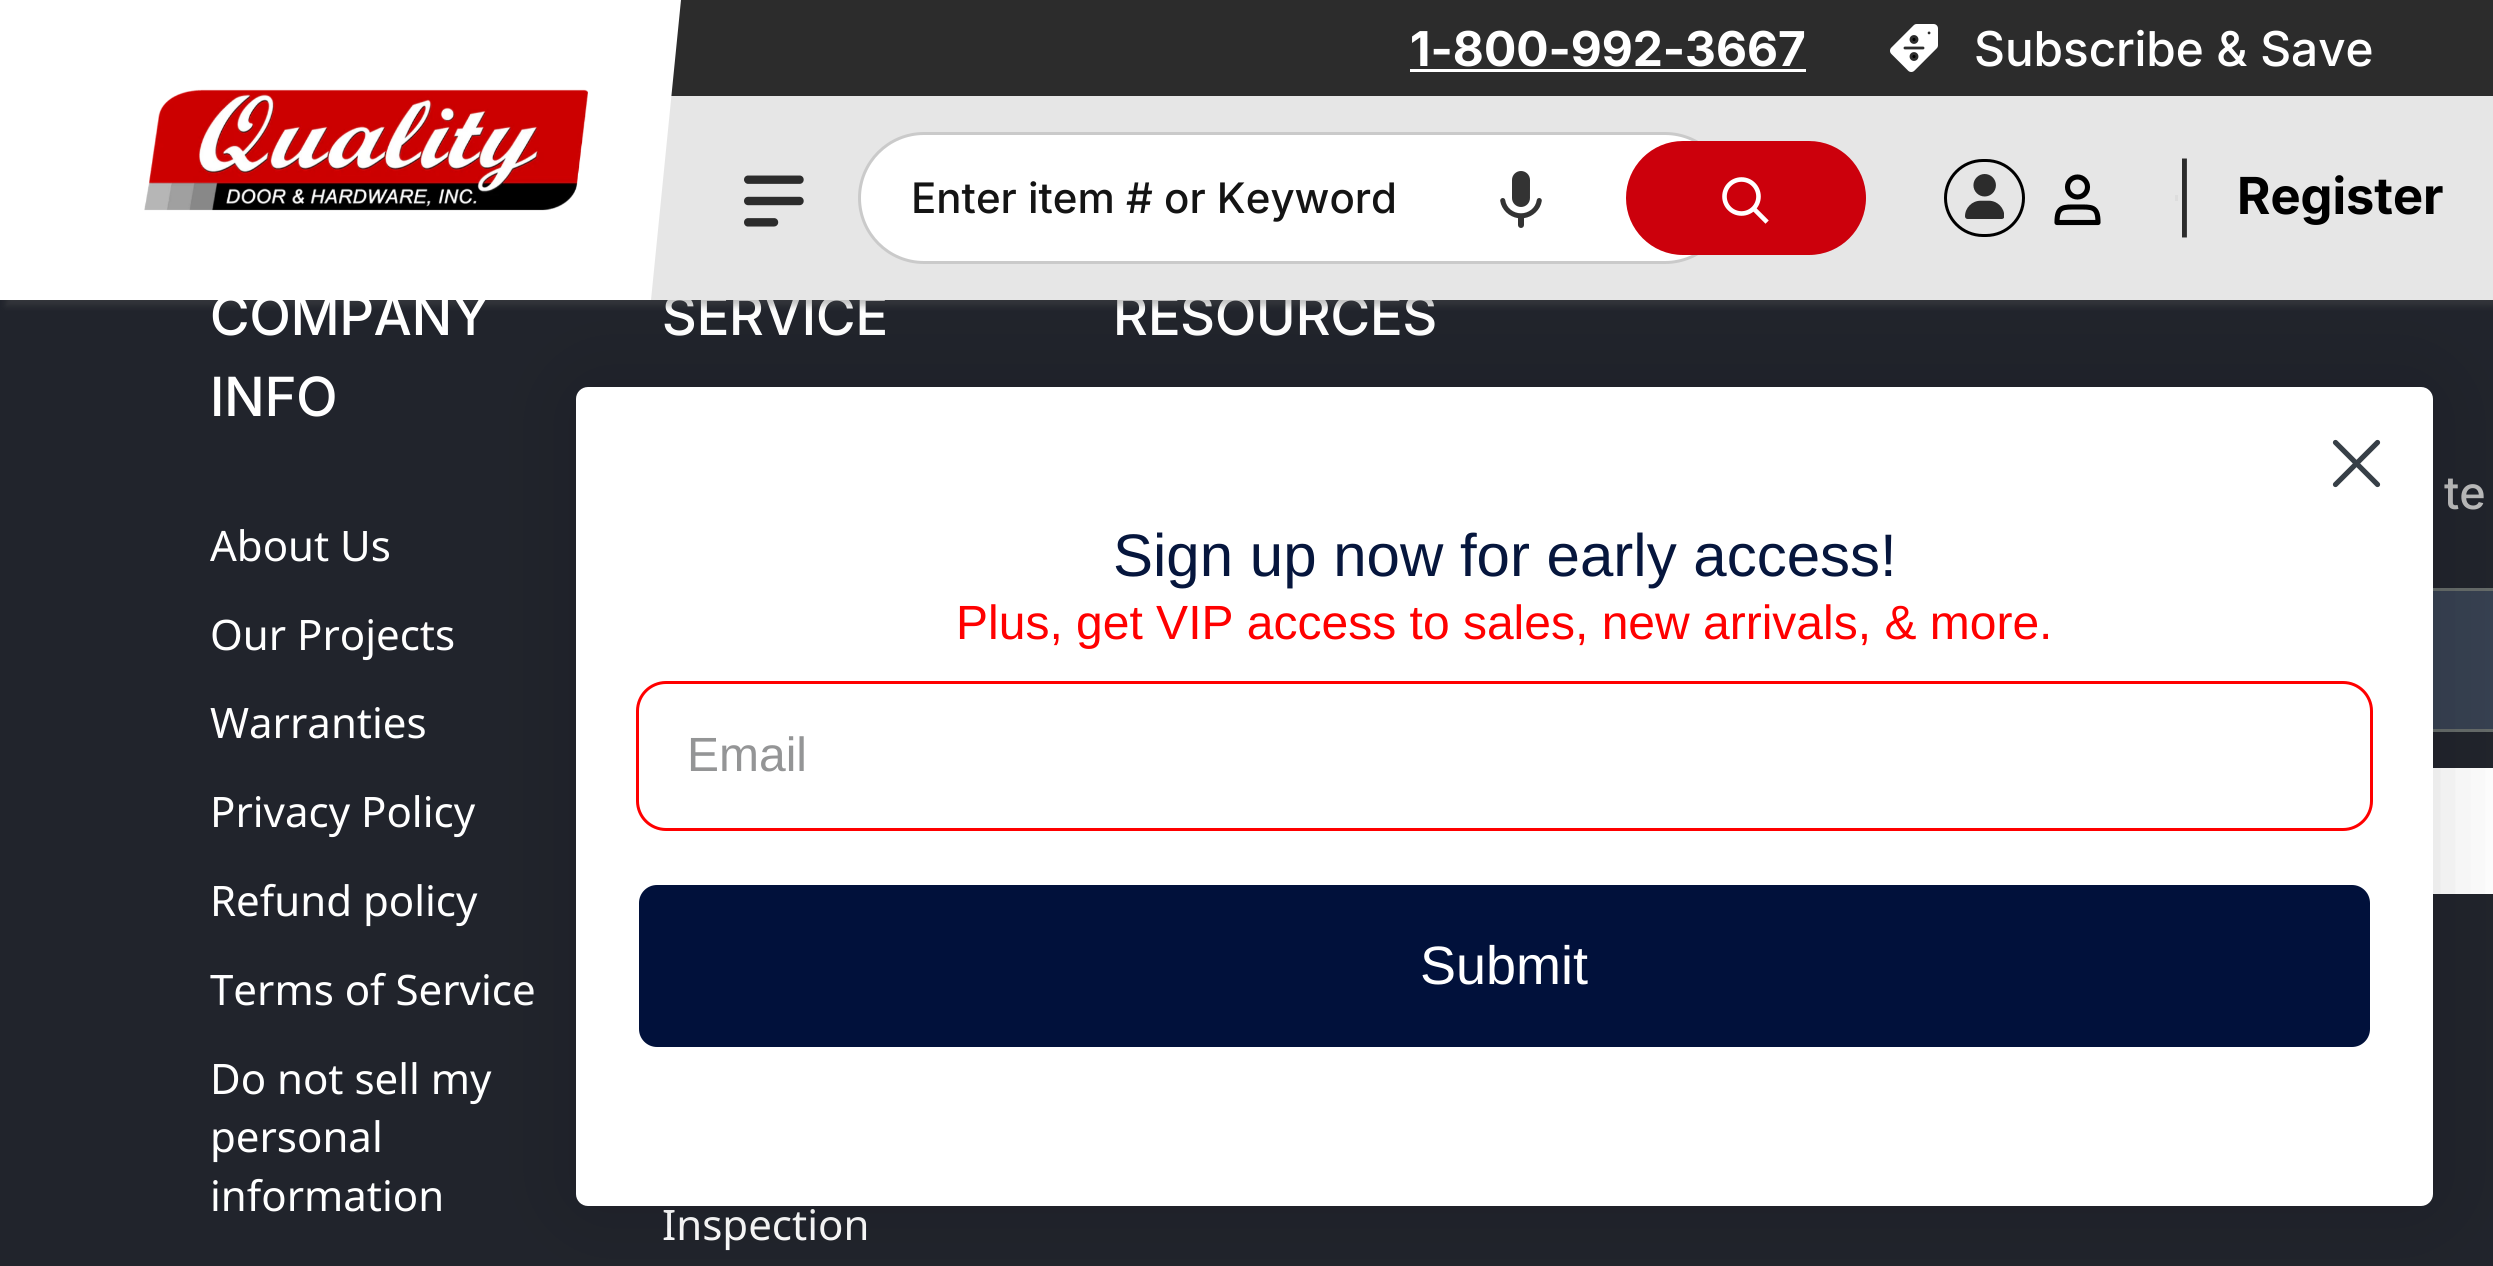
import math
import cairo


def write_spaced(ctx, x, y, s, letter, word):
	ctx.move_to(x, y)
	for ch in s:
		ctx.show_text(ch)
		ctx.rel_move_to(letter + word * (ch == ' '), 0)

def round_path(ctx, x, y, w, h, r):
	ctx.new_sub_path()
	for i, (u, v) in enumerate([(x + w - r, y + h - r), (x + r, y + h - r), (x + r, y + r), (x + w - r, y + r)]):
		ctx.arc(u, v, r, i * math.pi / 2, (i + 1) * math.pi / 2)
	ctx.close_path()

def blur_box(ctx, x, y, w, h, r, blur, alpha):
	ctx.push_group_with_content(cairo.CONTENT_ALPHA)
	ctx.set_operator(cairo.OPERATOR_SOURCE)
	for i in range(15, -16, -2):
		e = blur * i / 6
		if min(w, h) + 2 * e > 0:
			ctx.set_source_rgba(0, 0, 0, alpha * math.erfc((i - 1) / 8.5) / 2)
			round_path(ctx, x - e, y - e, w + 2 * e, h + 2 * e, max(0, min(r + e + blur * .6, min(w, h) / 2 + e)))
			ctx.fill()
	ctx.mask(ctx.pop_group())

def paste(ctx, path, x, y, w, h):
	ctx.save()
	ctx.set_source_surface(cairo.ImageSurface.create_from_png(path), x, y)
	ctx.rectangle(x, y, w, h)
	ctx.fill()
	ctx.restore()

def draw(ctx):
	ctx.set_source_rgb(0.129, 0.141, 0.173)
	ctx.paint()
	ctx.select_font_face('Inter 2 Medium')
	ctx.set_font_size(54)
	ctx.set_source_rgb(1, 1, 1)
	ctx.move_to(662, 335)
	ctx.show_text('SERVICE')
	ctx.move_to(1113, 335)
	ctx.show_text('RESOURCES')
	ctx.set_source_rgb(0.902, 0.902, 0.902)
	ctx.rectangle(651, 96, 1842, 204)
	ctx.fill()
	ctx.save()
	ctx.rectangle(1, 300, 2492, 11)
	ctx.clip()
	ctx.set_source_rgb(0.322, 0.322, 0.322)
	blur_box(ctx, 6, 6, 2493, 300, 0, 3, 0.35)
	ctx.restore()
	ctx.set_source_rgb(1, 1, 1)
	ctx.rectangle(0, 0, 621, 300)
	ctx.fill()
	paste(ctx, 'media/1.png', 144, 89, 444, 122)
	ctx.set_source_rgb(0.173, 0.173, 0.173)
	ctx.rectangle(671, 0, 1822, 96)
	ctx.fill()
	ctx.set_source_rgb(1, 1, 1)
	ctx.new_path()
	ctx.move_to(621, 0)
	ctx.line_to(681, 0)
	ctx.line_to(651, 300)
	ctx.line_to(621, 300)
	ctx.close_path()
	ctx.fill()
	ctx.select_font_face('Inter', cairo.FONT_SLANT_NORMAL, cairo.FONT_WEIGHT_BOLD)
	ctx.set_font_size(48)
	ctx.move_to(1410, 66)
	ctx.show_text('1-800-992-3667')
	ctx.rectangle(1410, 69, 396, 3)
	ctx.fill()
	paste(ctx, 'media/2.png', 1890, 24, 48, 48)
	ctx.select_font_face('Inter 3 Medium')
	ctx.move_to(1974, 66)
	ctx.show_text('Subscribe & Save')
	paste(ctx, 'media/3.png', 744, 175, 60, 52)
	round_path(ctx, 859.5, 133.5, 870, 129, 64.5)
	ctx.fill_preserve()
	ctx.set_source_rgb(0.792, 0.792, 0.792)
	ctx.set_line_width(3)
	ctx.stroke()
	ctx.select_font_face('Inter Medium')
	ctx.set_font_size(42)
	ctx.set_source_rgb(0.082, 0.082, 0.082)
	ctx.move_to(911, 213)
	ctx.show_text('Enter item # or Keyword')
	paste(ctx, 'media/4.png', 1500, 171, 42, 57)
	ctx.set_source_rgb(0.8, 0, 0.047)
	round_path(ctx, 1626, 141, 240, 114, 57)
	ctx.fill()
	ctx.new_path()
	ctx.move_to(1765.5, 220.5)
	ctx.line_to(1754, 209)
	ctx.set_source_rgb(1, 1, 1)
	ctx.set_line_width(4.6)
	ctx.set_line_cap(cairo.LINE_CAP_SQUARE)
	ctx.stroke()
	ctx.arc(1741.5, 196.5, 17, 0, 2 * math.pi)
	ctx.set_line_cap(cairo.LINE_CAP_BUTT)
	ctx.stroke()
	round_path(ctx, 1945.5, 160.5, 78, 75, 37.5)
	ctx.set_source_rgb(0, 0, 0)
	ctx.set_line_width(3)
	ctx.stroke()
	paste(ctx, 'media/5.png', 1965, 174, 39, 45)
	ctx.new_path()
	ctx.move_to(2098, 222.5)
	ctx.curve_to(2098, 206, 2092, 207, 2077.5, 207)
	ctx.curve_to(2063, 207, 2057, 206, 2057, 222.5)
	ctx.close_path()
	ctx.set_line_width(5.1)
	ctx.set_line_cap(cairo.LINE_CAP_ROUND)
	ctx.set_line_join(cairo.LINE_JOIN_ROUND)
	ctx.stroke()
	ctx.arc(2077.5, 187, 10, 0, 2 * math.pi)
	ctx.set_line_cap(cairo.LINE_CAP_BUTT)
	ctx.set_line_join(cairo.LINE_JOIN_MITER)
	ctx.stroke()
	ctx.set_source_rgb(0.867, 0.867, 0.867)
	ctx.rectangle(2175, 195, 3, 6)
	ctx.fill()
	ctx.select_font_face('Inter')
	ctx.set_font_size(66)
	ctx.set_source_rgb(0.173, 0.173, 0.173)
	ctx.move_to(2174, 222)
	ctx.show_text('|')
	ctx.select_font_face('Inter 2', cairo.FONT_SLANT_NORMAL, cairo.FONT_WEIGHT_BOLD)
	ctx.set_font_size(51)
	ctx.set_source_rgb(0, 0, 0)
	ctx.move_to(2237, 214)
	ctx.show_text('Register')
	ctx.select_font_face('Inter 2 Medium')
	ctx.set_font_size(54)
	ctx.set_source_rgb(1, 1, 1)
	ctx.move_to(210, 335)
	ctx.show_text('COMPANY')
	ctx.move_to(210, 416)
	ctx.show_text('INFO')
	ctx.select_font_face('Noto Sans')
	ctx.set_font_size(42)
	for x, y, s in [
		(210, 561, 'About Us'),
		(210, 650, 'Our Projects'),
		(210, 738, 'Warranties'),
		(210, 827, 'Privacy Policy'),
		(210, 916, 'Refund policy'),
		(210, 1005, 'Terms of Service'),
		(210, 1094, 'Do not sell my'),
		(210, 1152, 'personal'),
		(210, 1211, 'information'),
		(662, 1240, 'Inspection'),
	]:
		ctx.move_to(x, y)
		ctx.show_text(s)
	ctx.select_font_face('Inter Medium')
	ctx.set_font_size(45)
	ctx.set_source_rgb(0.737, 0.737, 0.737)
	write_spaced(ctx, 2444, 509, 'te', 0, -1)
	ctx.set_source_rgb(0.216, 0.255, 0.318)
	ctx.rectangle(2433, 591, 60, 138)
	ctx.fill()
	ctx.rectangle(1567.5, 589.5, 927, 141)
	ctx.set_source_rgb(0.396, 0.42, 0.412)
	ctx.set_line_width(3)
	ctx.stroke()
	ctx.set_source_rgb(1, 1, 1)
	ctx.rectangle(2433, 768, 60, 126)
	ctx.fill()
	ctx.set_source_rgb(0, 0, 0)
	blur_box(ctx, 576, 387, 1857, 819, 12, 45, 0.15)
	ctx.set_source_rgb(1, 1, 1)
	round_path(ctx, 576, 387, 1857, 819, 12)
	ctx.fill()
	ctx.new_path()
	ctx.move_to(2335.5, 442.5)
	ctx.line_to(2377.5, 484.5)
	ctx.move_to(2335.5, 484.5)
	ctx.line_to(2377.5, 442.5)
	ctx.close_path()
	ctx.set_source_rgb(0.216, 0.247, 0.278)
	ctx.set_line_width(5.2)
	ctx.set_line_cap(cairo.LINE_CAP_ROUND)
	ctx.set_line_join(cairo.LINE_JOIN_ROUND)
	ctx.stroke()
	ctx.select_font_face('Liberation Sans')
	ctx.set_font_size(60)
	ctx.set_source_rgb(0.027, 0.086, 0.239)
	ctx.move_to(1113, 576)
	ctx.show_text('Sign up now for early access!')
	ctx.set_font_size(48)
	ctx.set_source_rgb(1, 0, 0)
	ctx.move_to(956, 639)
	ctx.show_text('Plus, get VIP access to sales, new arrivals, & more.')
	round_path(ctx, 637.5, 682.5, 1734, 147, 28.5)
	ctx.set_line_width(3)
	ctx.set_line_cap(cairo.LINE_CAP_BUTT)
	ctx.set_line_join(cairo.LINE_JOIN_MITER)
	ctx.stroke()
	ctx.set_source_rgb(0.58, 0.584, 0.588)
	ctx.move_to(687, 771)
	ctx.show_text('Email')
	ctx.set_source_rgb(0.004, 0.067, 0.231)
	round_path(ctx, 639, 885, 1731, 162, 18)
	ctx.fill()
	ctx.set_font_size(54)
	ctx.set_source_rgb(1, 1, 1)
	ctx.move_to(1420, 984)
	ctx.show_text('Submit')


surface = cairo.ImageSurface(cairo.FORMAT_RGB24, 2493, 1266)
ctx = cairo.Context(surface)
options = cairo.FontOptions()
options.set_hint_metrics(cairo.HINT_METRICS_OFF)
options.set_hint_style(cairo.HINT_STYLE_NONE)
ctx.set_font_options(options)
ctx.set_miter_limit(4)
draw(ctx)
surface.write_to_png('image.png')
